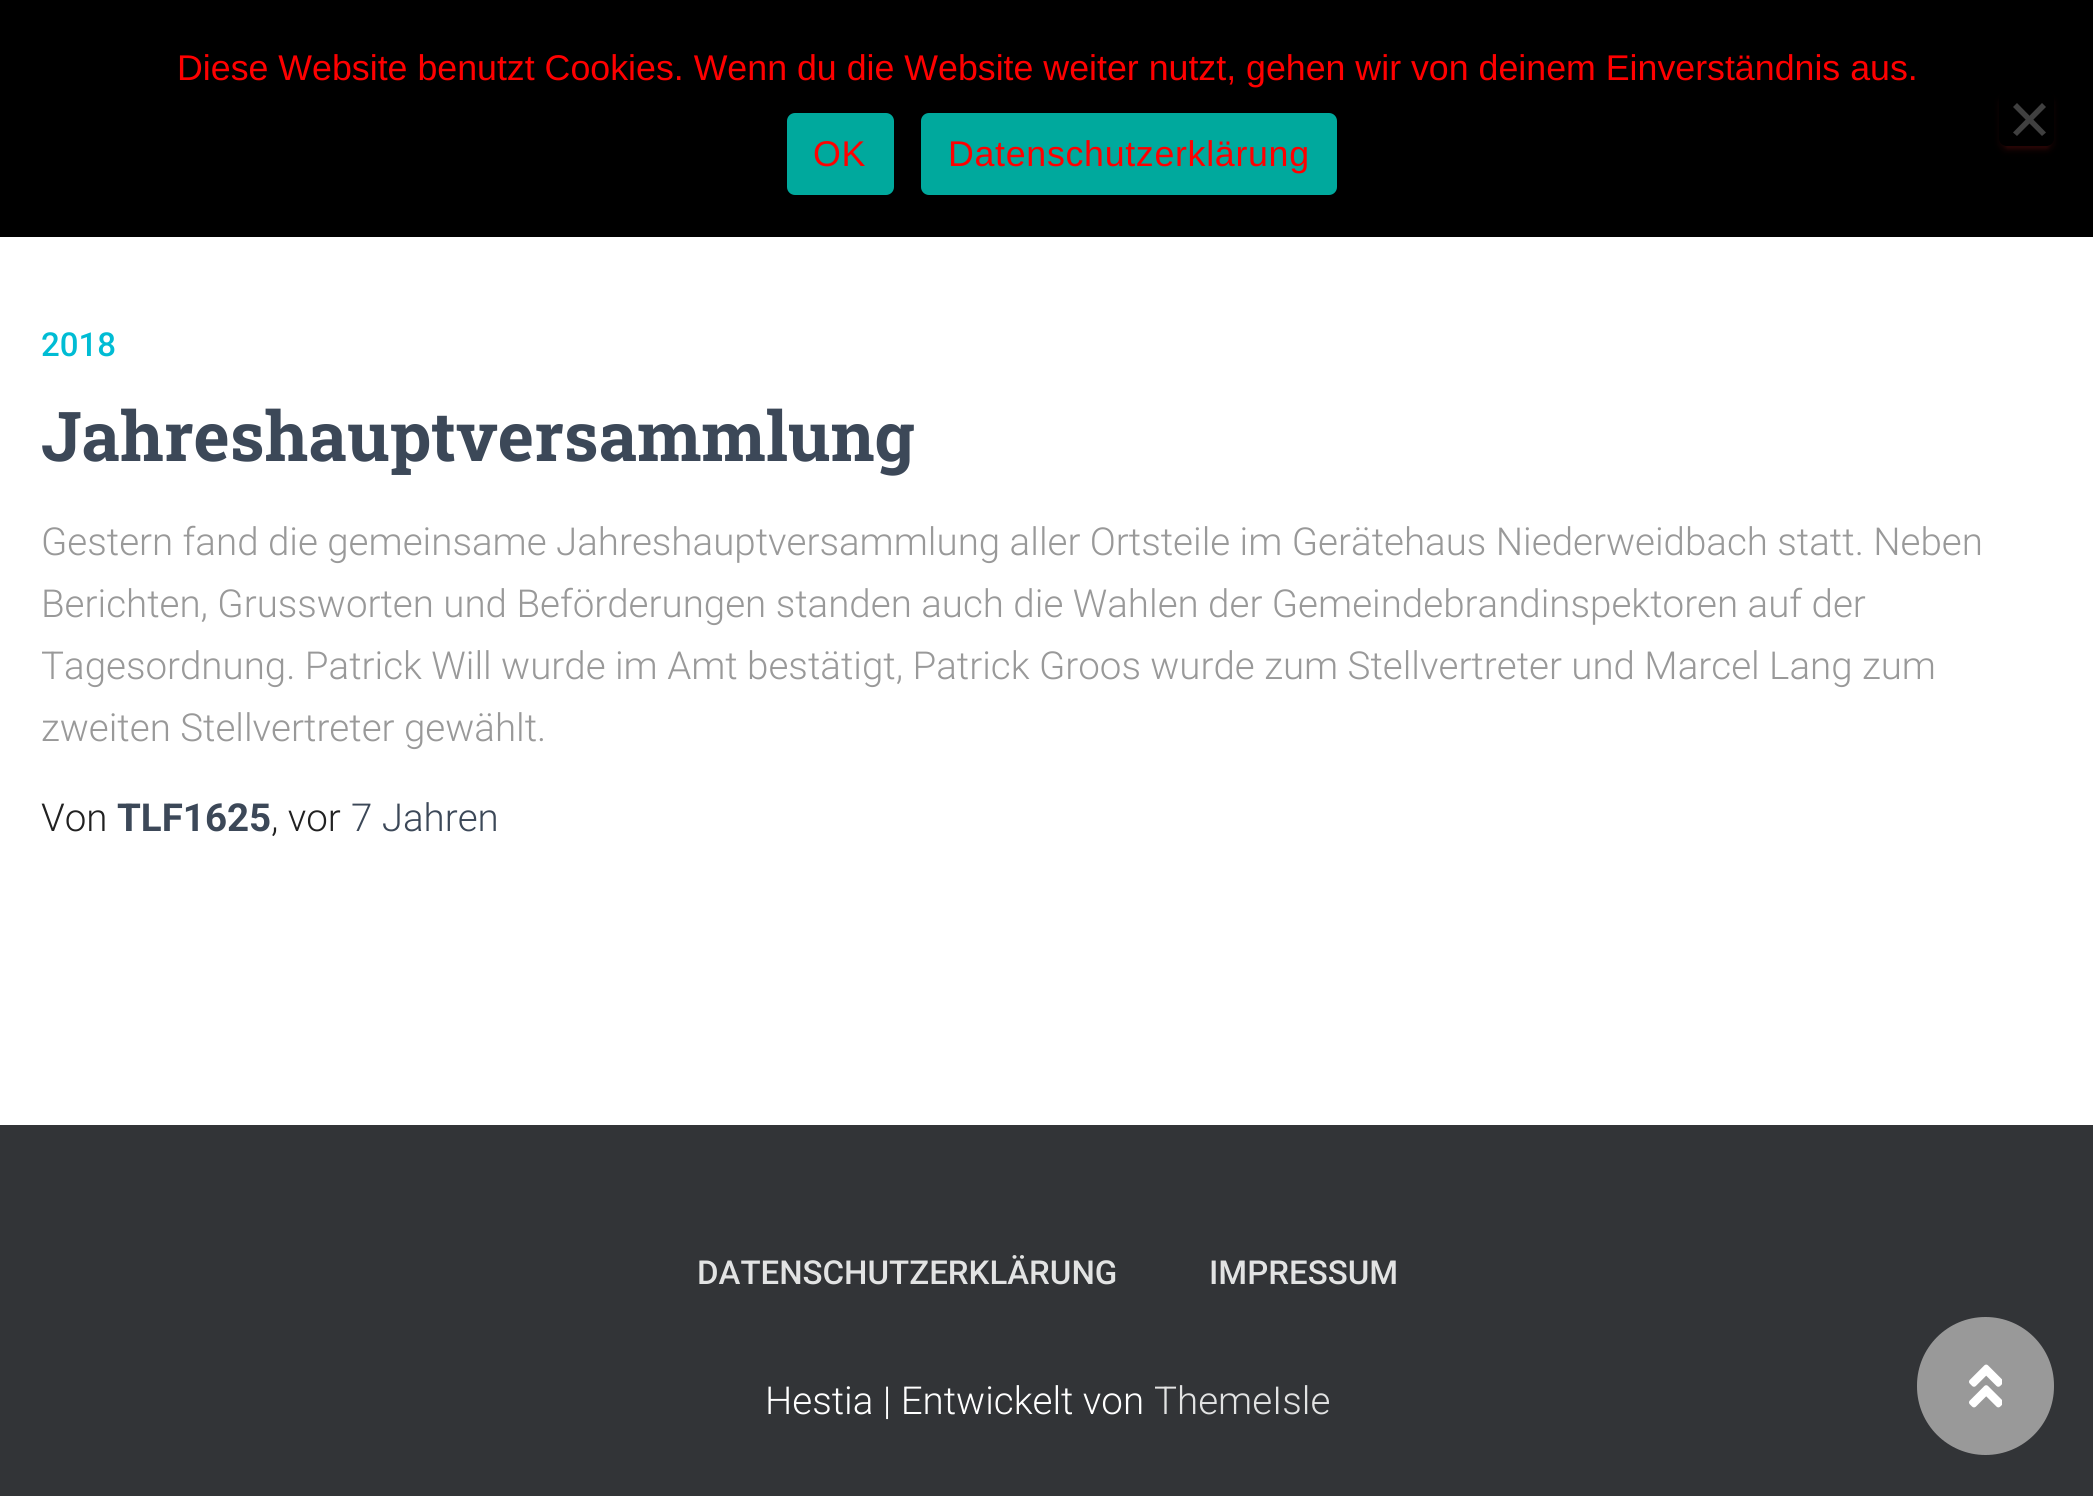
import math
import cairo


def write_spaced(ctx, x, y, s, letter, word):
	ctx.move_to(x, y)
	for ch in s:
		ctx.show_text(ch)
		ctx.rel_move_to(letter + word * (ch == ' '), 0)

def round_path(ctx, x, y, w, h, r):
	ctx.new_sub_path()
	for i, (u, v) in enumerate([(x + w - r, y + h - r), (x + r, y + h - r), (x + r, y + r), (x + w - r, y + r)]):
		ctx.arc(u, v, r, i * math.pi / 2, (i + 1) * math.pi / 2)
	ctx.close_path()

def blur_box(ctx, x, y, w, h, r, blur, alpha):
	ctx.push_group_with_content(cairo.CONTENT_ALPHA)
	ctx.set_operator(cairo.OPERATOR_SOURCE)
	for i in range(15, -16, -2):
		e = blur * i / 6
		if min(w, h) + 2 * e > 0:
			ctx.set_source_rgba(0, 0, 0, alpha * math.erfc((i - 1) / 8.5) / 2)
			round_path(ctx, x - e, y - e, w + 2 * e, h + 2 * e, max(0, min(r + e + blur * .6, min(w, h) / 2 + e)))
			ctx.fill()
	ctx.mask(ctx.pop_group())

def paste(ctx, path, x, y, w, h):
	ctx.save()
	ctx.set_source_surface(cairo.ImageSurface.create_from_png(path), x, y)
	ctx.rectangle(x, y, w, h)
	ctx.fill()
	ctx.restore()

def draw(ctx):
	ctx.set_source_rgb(0.196, 0.204, 0.216)
	ctx.paint()
	ctx.set_source_rgb(0, 0, 0)
	ctx.rectangle(0, 0, 2093, 237)
	ctx.fill()
	ctx.select_font_face('Liberation Sans')
	ctx.set_font_size(35.75)
	ctx.set_source_rgb(1, 0, 0)
	ctx.move_to(177, 80)
	ctx.show_text('Diese Website benutzt Cookies. Wenn du die Website weiter nutzt, gehen wir von deinem Einverständnis aus.')
	ctx.set_source_rgb(0, 0.663, 0.616)
	round_path(ctx, 787, 113, 107, 82, 8)
	ctx.fill()
	ctx.set_source_rgb(1, 0, 0)
	write_spaced(ctx, 813, 166, 'OK', 0.7, 0)
	ctx.set_source_rgb(0, 0.663, 0.616)
	round_path(ctx, 921, 113, 416, 82, 8)
	ctx.fill()
	ctx.set_source_rgb(1, 0, 0)
	write_spaced(ctx, 948, 166, 'Datenschutzerklärung', 0.7, 0)
	ctx.save()
	ctx.set_fill_rule(cairo.FILL_RULE_EVEN_ODD)
	ctx.new_path()
	ctx.move_to(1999, 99)
	ctx.line_to(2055, 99)
	ctx.line_to(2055, 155)
	ctx.line_to(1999, 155)
	ctx.close_path()
	ctx.move_to(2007, 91)
	ctx.line_to(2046, 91)
	ctx.curve_to(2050.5, 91, 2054, 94.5, 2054, 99)
	ctx.line_to(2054, 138)
	ctx.curve_to(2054, 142.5, 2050.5, 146, 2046, 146)
	ctx.line_to(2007, 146)
	ctx.curve_to(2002.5, 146, 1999, 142.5, 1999, 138)
	ctx.line_to(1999, 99)
	ctx.curve_to(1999, 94.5, 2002.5, 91, 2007, 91)
	ctx.close_path()
	ctx.clip()
	ctx.set_source_rgb(0.502, 0.067, 0.067)
	blur_box(ctx, 2005, 105, 44, 44, 3, 1.5, 0.2)
	ctx.restore()
	ctx.save()
	ctx.set_fill_rule(cairo.FILL_RULE_EVEN_ODD)
	ctx.new_path()
	ctx.move_to(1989, 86)
	ctx.line_to(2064, 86)
	ctx.line_to(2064, 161)
	ctx.line_to(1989, 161)
	ctx.close_path()
	ctx.move_to(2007, 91)
	ctx.line_to(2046, 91)
	ctx.curve_to(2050.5, 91, 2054, 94.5, 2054, 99)
	ctx.line_to(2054, 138)
	ctx.curve_to(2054, 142.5, 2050.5, 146, 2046, 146)
	ctx.line_to(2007, 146)
	ctx.curve_to(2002.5, 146, 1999, 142.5, 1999, 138)
	ctx.line_to(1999, 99)
	ctx.curve_to(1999, 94.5, 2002.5, 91, 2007, 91)
	ctx.close_path()
	ctx.clip()
	ctx.set_source_rgb(0.502, 0.067, 0.067)
	blur_box(ctx, 1999, 96, 55, 55, 8, 3, 0.14)
	ctx.restore()
	ctx.set_source_rgb(0.251, 0.251, 0.251)
	ctx.new_path()
	ctx.move_to(2042, 103)
	ctx.line_to(2046, 107)
	ctx.line_to(2017, 136)
	ctx.line_to(2013, 132.5)
	ctx.close_path()
	ctx.fill()
	ctx.new_path()
	ctx.move_to(2013, 107)
	ctx.line_to(2017, 103)
	ctx.line_to(2046, 132.5)
	ctx.line_to(2042, 136)
	ctx.close_path()
	ctx.fill()
	ctx.set_source_rgb(1, 1, 1)
	ctx.rectangle(0, 237, 2093, 888)
	ctx.fill()
	ctx.select_font_face('Roboto Medium')
	ctx.set_font_size(33)
	ctx.set_source_rgb(0, 0.737, 0.831)
	ctx.move_to(41, 356)
	ctx.show_text('2018')
	ctx.select_font_face('Roboto Slab', cairo.FONT_SLANT_NORMAL, cairo.FONT_WEIGHT_BOLD)
	ctx.set_font_size(68.75)
	ctx.set_source_rgb(0.235, 0.282, 0.345)
	ctx.move_to(41, 461)
	ctx.show_text('Jahreshauptversammlung')
	ctx.select_font_face('Roboto Light')
	ctx.set_font_size(38.5)
	ctx.set_source_rgb(0.6, 0.6, 0.6)
	for x, y, s in [
		(41, 555, 'Gestern fand die gemeinsame Jahreshauptversammlung aller Ortsteile im Gerätehaus Niederweidbach statt. Neben'),
		(41, 617, 'Berichten, Grussworten und Beförderungen standen auch die Wahlen der Gemeindebrandinspektoren auf der'),
		(41, 679, 'Tagesordnung. Patrick Will wurde im Amt bestätigt, Patrick Groos wurde zum Stellvertreter und Marcel Lang zum'),
		(41, 741, 'zweiten Stellvertreter gewählt.'),
	]:
		ctx.move_to(x, y)
		ctx.show_text(s)
	ctx.set_source_rgb(0.129, 0.129, 0.129)
	ctx.move_to(41, 831)
	ctx.show_text('Von')
	ctx.select_font_face('Roboto', cairo.FONT_SLANT_NORMAL, cairo.FONT_WEIGHT_BOLD)
	ctx.set_source_rgb(0.235, 0.282, 0.345)
	ctx.move_to(117, 831)
	ctx.show_text('TLF1625')
	ctx.select_font_face('Roboto Light')
	ctx.set_source_rgb(0.129, 0.129, 0.129)
	ctx.move_to(271, 831)
	ctx.show_text(', vor')
	ctx.set_source_rgb(0.235, 0.282, 0.345)
	ctx.move_to(351, 831)
	ctx.show_text('7 Jahren')
	ctx.select_font_face('Roboto Medium')
	ctx.set_font_size(33)
	ctx.set_source_rgb(0.886, 0.89, 0.89)
	ctx.move_to(697, 1284)
	ctx.show_text('DATENSCHUTZERKLÄRUNG')
	ctx.move_to(1209, 1284)
	ctx.show_text('IMPRESSUM')
	ctx.select_font_face('Roboto Light')
	ctx.set_font_size(38.5)
	ctx.set_source_rgb(1, 1, 1)
	ctx.move_to(765, 1414)
	ctx.show_text('Hestia | Entwickelt von')
	ctx.set_source_rgb(0.886, 0.89, 0.89)
	ctx.move_to(1154, 1414)
	ctx.show_text('ThemeIsle')
	ctx.set_source_rgb(0.6, 0.6, 0.6)
	round_path(ctx, 1917, 1317, 137, 138, 68.5)
	ctx.fill()
	paste(ctx, 'media/1.png', 1969, 1364, 33, 44)


surface = cairo.ImageSurface(cairo.FORMAT_RGB24, 2093, 1496)
ctx = cairo.Context(surface)
options = cairo.FontOptions()
options.set_hint_metrics(cairo.HINT_METRICS_OFF)
options.set_hint_style(cairo.HINT_STYLE_NONE)
ctx.set_font_options(options)
ctx.set_miter_limit(4)
draw(ctx)
surface.write_to_png('image.png')
